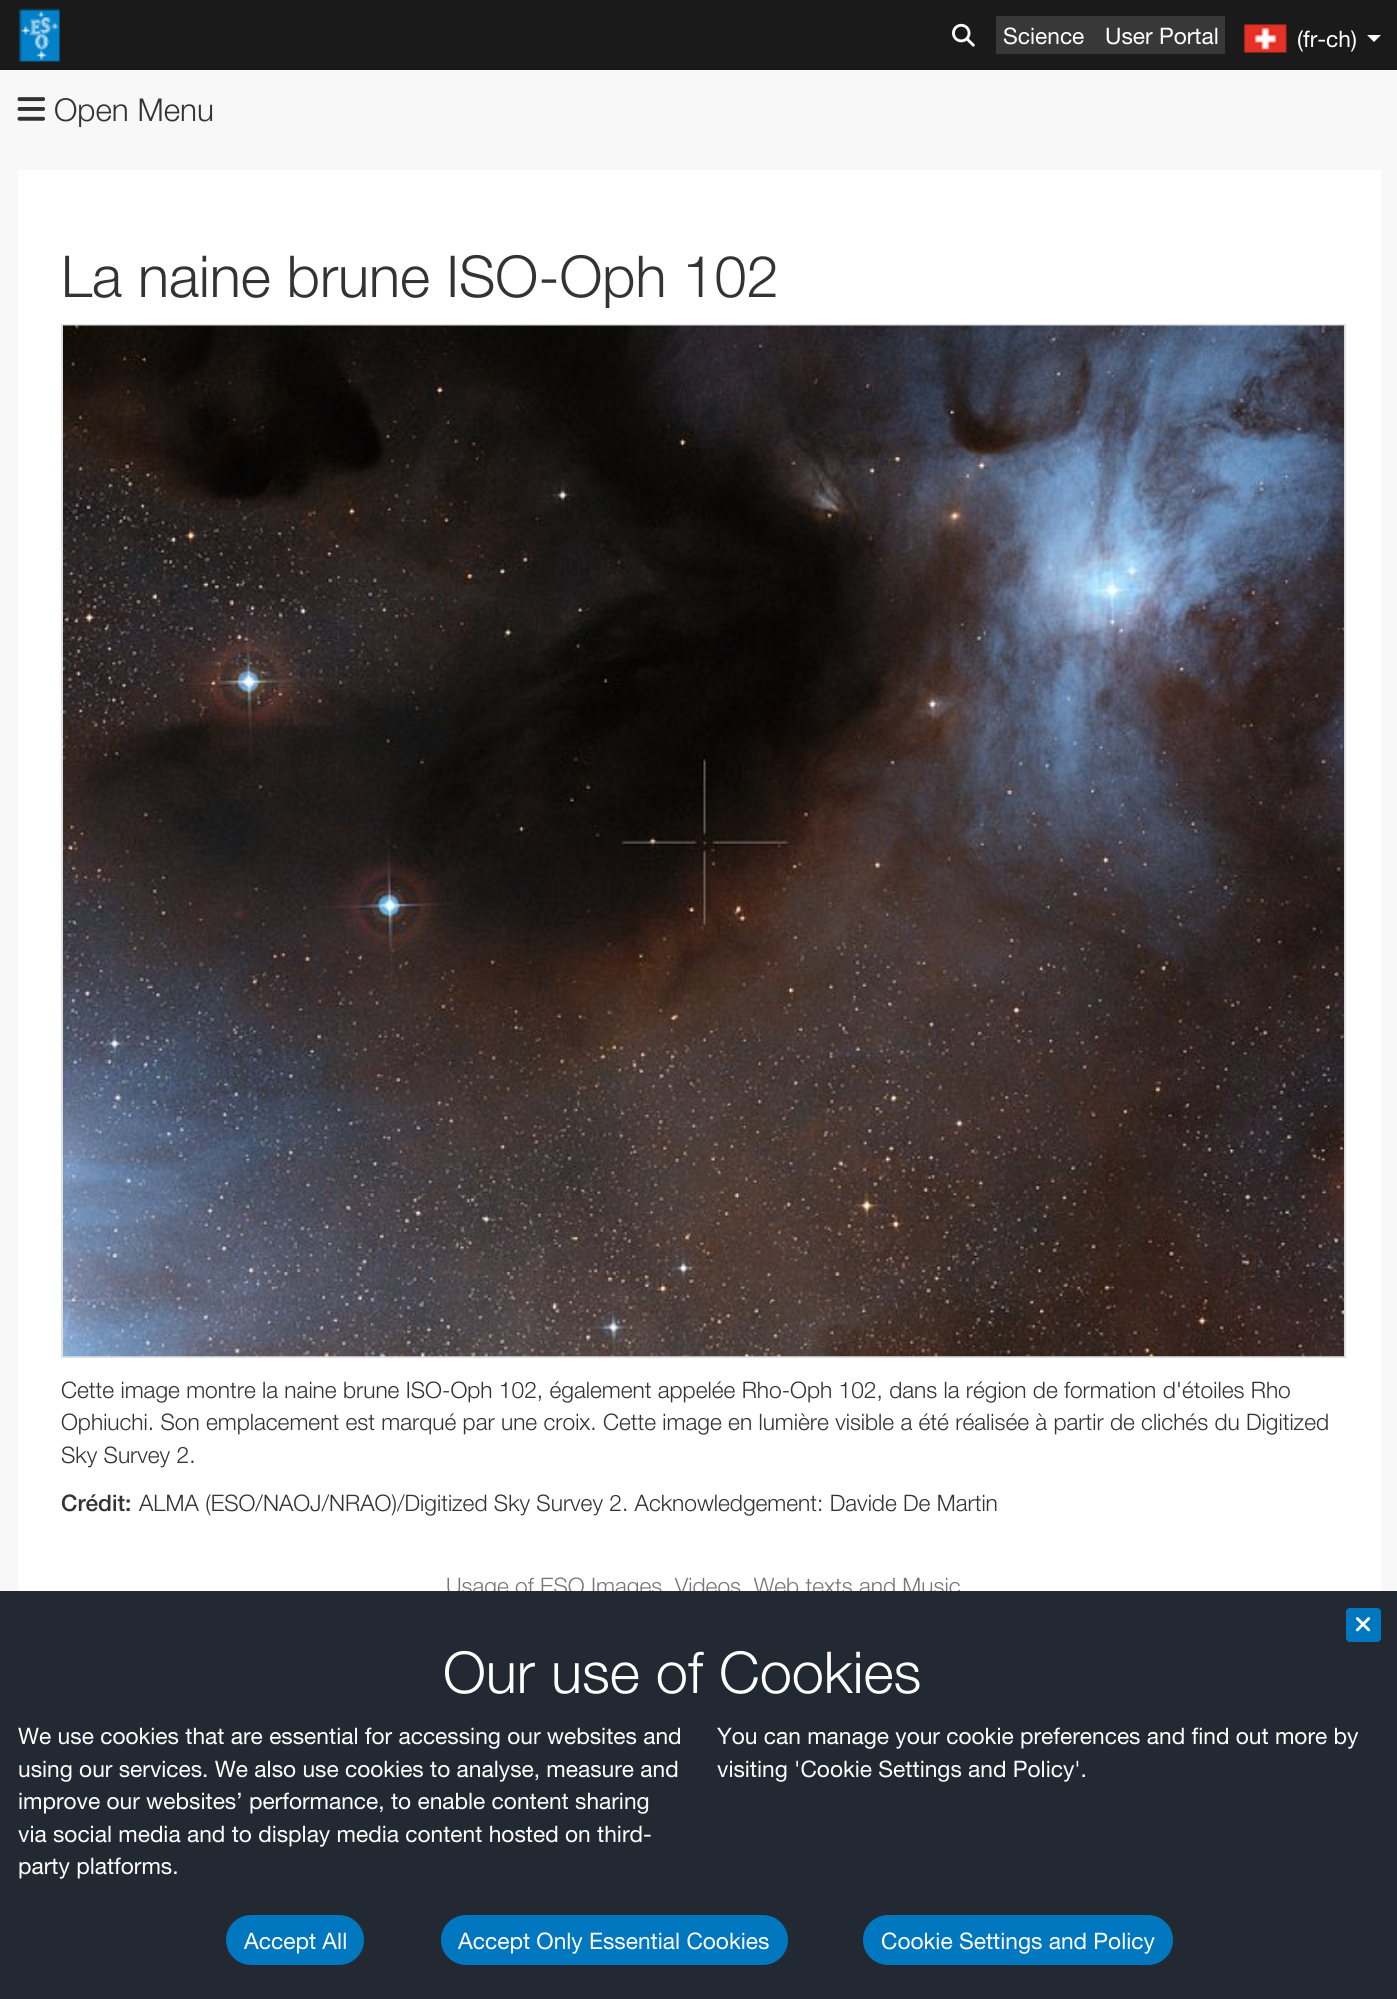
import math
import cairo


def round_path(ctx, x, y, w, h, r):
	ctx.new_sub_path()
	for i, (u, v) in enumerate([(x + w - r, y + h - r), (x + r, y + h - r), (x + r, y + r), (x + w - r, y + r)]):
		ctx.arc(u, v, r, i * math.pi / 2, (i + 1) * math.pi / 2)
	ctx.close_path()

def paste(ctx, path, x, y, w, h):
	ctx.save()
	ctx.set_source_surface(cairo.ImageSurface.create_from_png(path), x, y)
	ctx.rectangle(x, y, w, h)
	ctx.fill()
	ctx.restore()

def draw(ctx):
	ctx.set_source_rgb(0.969, 0.969, 0.969)
	ctx.paint()
	ctx.set_source_rgb(0.102, 0.102, 0.102)
	ctx.rectangle(0, 0, 1397, 70)
	ctx.fill()
	paste(ctx, 'media/1.png', 18, 8, 42, 54)
	paste(ctx, 'media/2.png', 952, 23, 23, 24)
	ctx.set_source_rgb(0.22, 0.22, 0.22)
	ctx.rectangle(996, 16, 229, 38)
	ctx.fill()
	ctx.select_font_face('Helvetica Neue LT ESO')
	ctx.set_font_size(22.75)
	ctx.set_source_rgb(1, 1, 1)
	ctx.move_to(1003, 44)
	ctx.show_text('Science')
	ctx.move_to(1105, 44)
	ctx.show_text('User Portal')
	paste(ctx, 'media/3.png', 1243, 24, 44, 29)
	ctx.move_to(1297, 47)
	ctx.show_text('(fr-ch)')
	ctx.new_path()
	ctx.move_to(1367, 35)
	ctx.line_to(1381, 35)
	ctx.line_to(1374, 42)
	ctx.close_path()
	ctx.fill()
	paste(ctx, 'media/4.png', 17, 97, 28, 24)
	ctx.select_font_face('Helvetica Neue LT ESO Light')
	ctx.set_font_size(31.5)
	ctx.set_source_rgb(0.2, 0.2, 0.2)
	ctx.move_to(54, 121)
	ctx.show_text('Open Menu')
	ctx.set_source_rgb(1, 1, 1)
	ctx.rectangle(18, 170, 1363, 1421)
	ctx.fill()
	ctx.set_font_size(57.75)
	ctx.set_source_rgb(0.2, 0.2, 0.2)
	ctx.move_to(61, 297)
	ctx.show_text('La naine brune ISO-Oph 102')
	ctx.rectangle(62, 325, 1283, 1032)
	ctx.set_source_rgb(0.878, 0.878, 0.878)
	ctx.stroke()
	paste(ctx, 'media/5.png', 63, 325, 1281, 1032)
	ctx.set_font_size(22.75)
	ctx.set_source_rgb(0.2, 0.2, 0.2)
	for x, y, s in [
		(61, 1398, 'Cette image montre la naine brune ISO-Oph 102, également appelée Rho-Oph 102, dans la région de formation d\'étoiles Rho'),
		(61, 1430, 'Ophiuchi. Son emplacement est marqué par une croix. Cette image en lumière visible a été réalisée à partir de clichés du Digitized'),
		(61, 1463, 'Sky Survey 2.'),
	]:
		ctx.move_to(x, y)
		ctx.show_text(s)
	ctx.select_font_face('Helvetica Neue LT ESO Medium')
	ctx.move_to(61, 1511)
	ctx.show_text('Crédit:')
	ctx.select_font_face('Helvetica Neue LT ESO Light')
	ctx.move_to(139, 1511)
	ctx.show_text('ALMA (ESO/NAOJ/NRAO)/Digitized Sky Survey 2. Acknowledgement: Davide De Martin')
	ctx.set_source_rgb(0.467, 0.467, 0.467)
	ctx.move_to(446, 1594)
	ctx.show_text('Usage of ESO Images, Videos, Web texts and Music')
	ctx.set_source_rgb(0.137, 0.161, 0.196)
	ctx.rectangle(0, 1591, 1397, 408)
	ctx.fill()
	ctx.set_source_rgb(0, 0.467, 0.745)
	round_path(ctx, 1346, 1608, 35, 34, 4)
	ctx.fill()
	paste(ctx, 'media/6.png', 1355, 1617, 16, 15)
	ctx.set_font_size(57.75)
	ctx.set_source_rgb(1, 1, 1)
	ctx.move_to(443, 1693)
	ctx.show_text('Our use of Cookies')
	ctx.select_font_face('Helvetica Neue LT ESO')
	ctx.set_font_size(22.75)
	for x, y, s in [
		(18, 1744, 'We use cookies that are essential for accessing our websites and'),
		(18, 1777, 'using our services. We also use cookies to analyse, measure and'),
		(18, 1809, 'improve our websites’ performance, to enable content sharing'),
		(18, 1842, 'via social media and to display media content hosted on third-'),
		(18, 1874, 'party platforms.'),
		(717, 1744, 'You can manage your cookie preferences and find out more by'),
		(717, 1777, 'visiting \'Cookie Settings and Policy\'.'),
	]:
		ctx.move_to(x, y)
		ctx.show_text(s)
	ctx.set_source_rgb(0, 0.467, 0.745)
	round_path(ctx, 226, 1915, 138, 50, 25)
	ctx.fill()
	ctx.set_source_rgb(1, 1, 1)
	ctx.move_to(244, 1949)
	ctx.show_text('Accept All')
	ctx.set_source_rgb(0, 0.467, 0.745)
	round_path(ctx, 441, 1915, 347, 50, 25)
	ctx.fill()
	ctx.set_source_rgb(1, 1, 1)
	ctx.move_to(458, 1949)
	ctx.show_text('Accept Only Essential Cookies')
	ctx.set_source_rgb(0, 0.467, 0.745)
	round_path(ctx, 863, 1915, 310, 50, 25)
	ctx.fill()
	ctx.set_source_rgb(1, 1, 1)
	ctx.move_to(881, 1949)
	ctx.show_text('Cookie Settings and Policy')


surface = cairo.ImageSurface(cairo.FORMAT_RGB24, 1397, 1999)
ctx = cairo.Context(surface)
options = cairo.FontOptions()
options.set_hint_metrics(cairo.HINT_METRICS_OFF)
options.set_hint_style(cairo.HINT_STYLE_NONE)
ctx.set_font_options(options)
ctx.set_miter_limit(4)
draw(ctx)
surface.write_to_png('image.png')
